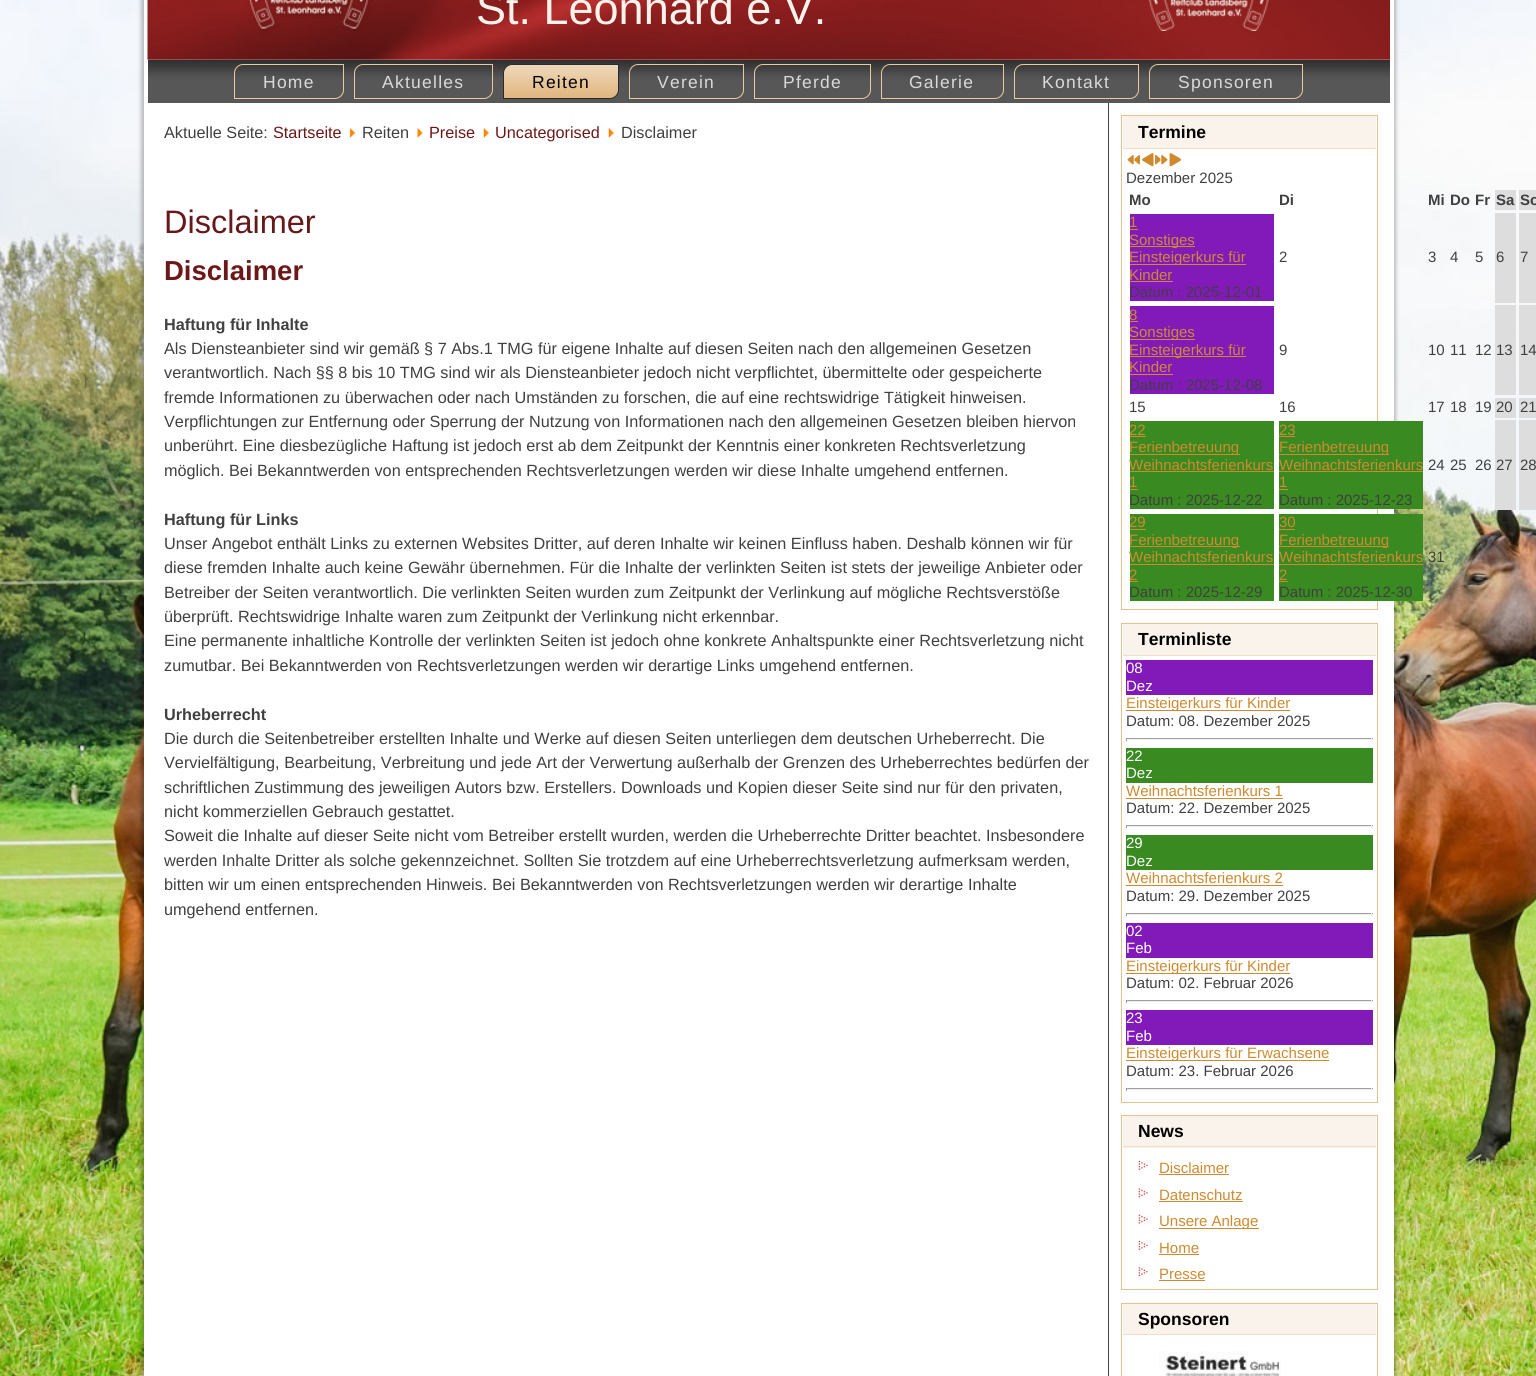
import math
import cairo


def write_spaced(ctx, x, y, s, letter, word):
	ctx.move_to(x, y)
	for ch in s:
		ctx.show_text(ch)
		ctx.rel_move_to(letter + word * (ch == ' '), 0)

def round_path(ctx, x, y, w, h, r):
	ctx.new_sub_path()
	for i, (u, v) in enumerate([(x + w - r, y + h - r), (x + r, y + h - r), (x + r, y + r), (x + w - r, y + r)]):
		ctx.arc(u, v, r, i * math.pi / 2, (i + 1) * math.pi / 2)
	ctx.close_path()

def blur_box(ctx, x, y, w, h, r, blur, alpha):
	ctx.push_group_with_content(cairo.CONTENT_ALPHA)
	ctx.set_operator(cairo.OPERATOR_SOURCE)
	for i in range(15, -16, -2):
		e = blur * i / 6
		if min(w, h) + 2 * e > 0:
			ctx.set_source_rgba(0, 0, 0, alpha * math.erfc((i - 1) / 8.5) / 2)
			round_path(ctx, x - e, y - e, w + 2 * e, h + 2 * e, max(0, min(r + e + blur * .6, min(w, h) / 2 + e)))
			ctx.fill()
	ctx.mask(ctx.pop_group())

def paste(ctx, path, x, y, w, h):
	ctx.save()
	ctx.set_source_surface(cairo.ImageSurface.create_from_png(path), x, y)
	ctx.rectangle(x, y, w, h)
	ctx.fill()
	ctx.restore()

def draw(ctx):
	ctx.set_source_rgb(1, 1, 1)
	ctx.paint()
	paste(ctx, 'media/1.png', 0, 0, 1536, 1376)
	ctx.set_source_rgb(0, 0, 0)
	blur_box(ctx, 141, -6, 1255, 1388, 0, 2, 0.25)
	ctx.set_source_rgb(1, 1, 1)
	ctx.rectangle(144, 0, 1250, 1376)
	ctx.fill()
	paste(ctx, 'media/2.png', 147, 0, 1243, 60)
	ctx.select_font_face('Liberation Sans')
	ctx.set_font_size(45)
	ctx.set_source_rgb(0.98, 0.953, 0.918)
	ctx.move_to(476, 24)
	ctx.show_text('St. Leonhard e.V.')
	gradient = cairo.LinearGradient(769, 60, 769, 103)
	gradient.add_color_stop_rgba(0, 0.18, 0.18, 0.18, 1)
	gradient.add_color_stop_rgba(0.4, 0.329, 0.329, 0.329, 1)
	gradient.add_color_stop_rgba(0.5, 0.341, 0.341, 0.341, 1)
	gradient.add_color_stop_rgba(1, 0.341, 0.341, 0.341, 1)
	ctx.set_source(gradient)
	ctx.rectangle(148, 60, 1242, 43)
	ctx.fill()
	ctx.new_path()
	ctx.move_to(243, 64.5)
	ctx.line_to(343.5, 64.5)
	ctx.line_to(343.5, 90)
	ctx.curve_to(343.5, 94.5, 339.5, 98.5, 335, 98.5)
	ctx.line_to(234.5, 98.5)
	ctx.line_to(234.5, 73)
	ctx.curve_to(234.5, 68.5, 238.5, 64.5, 243, 64.5)
	ctx.close_path()
	ctx.set_source_rgb(0.914, 0.788, 0.627)
	ctx.set_line_width(1)
	ctx.stroke()
	ctx.set_font_size(17.5)
	ctx.set_source_rgb(0.851, 0.851, 0.851)
	write_spaced(ctx, 263, 88, 'Home', 1.25, 0)
	ctx.new_path()
	ctx.move_to(363, 64.5)
	ctx.line_to(492.5, 64.5)
	ctx.line_to(492.5, 90)
	ctx.curve_to(492.5, 94.5, 488.5, 98.5, 484, 98.5)
	ctx.line_to(354.5, 98.5)
	ctx.line_to(354.5, 73)
	ctx.curve_to(354.5, 68.5, 358.5, 64.5, 363, 64.5)
	ctx.close_path()
	ctx.set_source_rgb(0.914, 0.788, 0.627)
	ctx.stroke()
	ctx.set_source_rgb(0.851, 0.851, 0.851)
	write_spaced(ctx, 382, 88, 'Aktuelles', 1.25, 0)
	gradient = cairo.LinearGradient(561, 64, 561, 99)
	gradient.add_color_stop_rgba(0, 0.937, 0.855, 0.741, 1)
	gradient.add_color_stop_rgba(1, 0.878, 0.706, 0.482, 1)
	ctx.set_source(gradient)
	ctx.new_path()
	ctx.move_to(512, 64.5)
	ctx.line_to(618.5, 64.5)
	ctx.line_to(618.5, 90)
	ctx.curve_to(618.5, 94.5, 614.5, 98.5, 610, 98.5)
	ctx.line_to(503.5, 98.5)
	ctx.line_to(503.5, 73)
	ctx.curve_to(503.5, 68.5, 507.5, 64.5, 512, 64.5)
	ctx.close_path()
	ctx.fill_preserve()
	ctx.set_source_rgb(0.169, 0.169, 0.169)
	ctx.stroke()
	ctx.set_source_rgb(0, 0, 0)
	write_spaced(ctx, 532, 88, 'Reiten', 1.25, 0)
	ctx.new_path()
	ctx.move_to(638, 64.5)
	ctx.line_to(743.5, 64.5)
	ctx.line_to(743.5, 90)
	ctx.curve_to(743.5, 94.5, 739.5, 98.5, 735, 98.5)
	ctx.line_to(629.5, 98.5)
	ctx.line_to(629.5, 73)
	ctx.curve_to(629.5, 68.5, 633.5, 64.5, 638, 64.5)
	ctx.close_path()
	ctx.set_source_rgb(0.914, 0.788, 0.627)
	ctx.stroke()
	ctx.set_source_rgb(0.851, 0.851, 0.851)
	write_spaced(ctx, 657, 88, 'Verein', 1.25, 0)
	ctx.new_path()
	ctx.move_to(763, 64.5)
	ctx.line_to(870.5, 64.5)
	ctx.line_to(870.5, 90)
	ctx.curve_to(870.5, 94.5, 866.5, 98.5, 862, 98.5)
	ctx.line_to(754.5, 98.5)
	ctx.line_to(754.5, 73)
	ctx.curve_to(754.5, 68.5, 758.5, 64.5, 763, 64.5)
	ctx.close_path()
	ctx.set_source_rgb(0.914, 0.788, 0.627)
	ctx.stroke()
	ctx.set_source_rgb(0.851, 0.851, 0.851)
	write_spaced(ctx, 783, 88, 'Pferde', 1.25, 0)
	ctx.new_path()
	ctx.move_to(890, 64.5)
	ctx.line_to(1003.5, 64.5)
	ctx.line_to(1003.5, 90)
	ctx.curve_to(1003.5, 94.5, 999.5, 98.5, 995, 98.5)
	ctx.line_to(881.5, 98.5)
	ctx.line_to(881.5, 73)
	ctx.curve_to(881.5, 68.5, 885.5, 64.5, 890, 64.5)
	ctx.close_path()
	ctx.set_source_rgb(0.914, 0.788, 0.627)
	ctx.stroke()
	ctx.set_source_rgb(0.851, 0.851, 0.851)
	write_spaced(ctx, 909, 88, 'Galerie', 1.25, 0)
	ctx.new_path()
	ctx.move_to(1023, 64.5)
	ctx.line_to(1138.5, 64.5)
	ctx.line_to(1138.5, 90)
	ctx.curve_to(1138.5, 94.5, 1134.5, 98.5, 1130, 98.5)
	ctx.line_to(1014.5, 98.5)
	ctx.line_to(1014.5, 73)
	ctx.curve_to(1014.5, 68.5, 1018.5, 64.5, 1023, 64.5)
	ctx.close_path()
	ctx.set_source_rgb(0.914, 0.788, 0.627)
	ctx.stroke()
	ctx.set_source_rgb(0.851, 0.851, 0.851)
	write_spaced(ctx, 1042, 88, 'Kontakt', 1.25, 0)
	ctx.new_path()
	ctx.move_to(1158, 64.5)
	ctx.line_to(1302.5, 64.5)
	ctx.line_to(1302.5, 90)
	ctx.curve_to(1302.5, 94.5, 1298.5, 98.5, 1294, 98.5)
	ctx.line_to(1149.5, 98.5)
	ctx.line_to(1149.5, 73)
	ctx.curve_to(1149.5, 68.5, 1153.5, 64.5, 1158, 64.5)
	ctx.close_path()
	ctx.set_source_rgb(0.914, 0.788, 0.627)
	ctx.stroke()
	ctx.set_source_rgb(0.851, 0.851, 0.851)
	write_spaced(ctx, 1178, 88, 'Sponsoren', 1.25, 0)
	ctx.set_font_size(16.25)
	ctx.set_source_rgb(0.251, 0.251, 0.251)
	ctx.move_to(164, 138)
	ctx.show_text('Aktuelle Seite:')
	ctx.set_source_rgb(0.427, 0.094, 0.094)
	ctx.move_to(273, 138)
	ctx.show_text('Startseite')
	paste(ctx, 'media/3.png', 349, 128, 7, 10)
	ctx.set_source_rgb(0.251, 0.251, 0.251)
	ctx.move_to(362, 138)
	ctx.show_text('Reiten')
	paste(ctx, 'media/4.png', 417, 128, 6, 10)
	ctx.set_source_rgb(0.427, 0.094, 0.094)
	ctx.move_to(429, 138)
	ctx.show_text('Preise')
	paste(ctx, 'media/5.png', 483, 128, 6, 10)
	ctx.move_to(495, 138)
	ctx.show_text('Uncategorised')
	paste(ctx, 'media/6.png', 608, 128, 6, 10)
	ctx.set_source_rgb(0.251, 0.251, 0.251)
	ctx.move_to(621, 138)
	ctx.show_text('Disclaimer')
	ctx.set_font_size(32.5)
	ctx.set_source_rgb(0.4, 0.098, 0.098)
	ctx.move_to(164, 233)
	ctx.show_text('Disclaimer')
	ctx.select_font_face('Liberation Sans', cairo.FONT_SLANT_NORMAL, cairo.FONT_WEIGHT_BOLD)
	ctx.set_font_size(27.5)
	ctx.set_source_rgb(0.427, 0.094, 0.094)
	ctx.move_to(164, 280)
	ctx.show_text('Disclaimer')
	ctx.set_font_size(16.25)
	ctx.set_source_rgb(0.251, 0.251, 0.251)
	ctx.move_to(164, 330)
	ctx.show_text('Haftung für Inhalte')
	ctx.select_font_face('Liberation Sans')
	for x, y, s in [
		(164, 354, 'Als Diensteanbieter sind wir gemäß § 7 Abs.1 TMG für eigene Inhalte auf diesen Seiten nach den allgemeinen Gesetzen'),
		(164, 378, 'verantwortlich. Nach §§ 8 bis 10 TMG sind wir als Diensteanbieter jedoch nicht verpflichtet, übermittelte oder gespeicherte'),
		(164, 403, 'fremde Informationen zu überwachen oder nach Umständen zu forschen, die auf eine rechtswidrige Tätigkeit hinweisen.'),
		(164, 427, 'Verpflichtungen zur Entfernung oder Sperrung der Nutzung von Informationen nach den allgemeinen Gesetzen bleiben hiervon'),
		(164, 451, 'unberührt. Eine diesbezügliche Haftung ist jedoch erst ab dem Zeitpunkt der Kenntnis einer konkreten Rechtsverletzung'),
		(164, 476, 'möglich. Bei Bekanntwerden von entsprechenden Rechtsverletzungen werden wir diese Inhalte umgehend entfernen.'),
	]:
		ctx.move_to(x, y)
		ctx.show_text(s)
	ctx.select_font_face('Liberation Sans', cairo.FONT_SLANT_NORMAL, cairo.FONT_WEIGHT_BOLD)
	ctx.move_to(164, 525)
	ctx.show_text('Haftung für Links')
	ctx.select_font_face('Liberation Sans')
	for x, y, s in [
		(164, 549, 'Unser Angebot enthält Links zu externen Websites Dritter, auf deren Inhalte wir keinen Einfluss haben. Deshalb können wir für'),
		(164, 573, 'diese fremden Inhalte auch keine Gewähr übernehmen. Für die Inhalte der verlinkten Seiten ist stets der jeweilige Anbieter oder'),
		(164, 598, 'Betreiber der Seiten verantwortlich. Die verlinkten Seiten wurden zum Zeitpunkt der Verlinkung auf mögliche Rechtsverstöße'),
		(164, 622, 'überprüft. Rechtswidrige Inhalte waren zum Zeitpunkt der Verlinkung nicht erkennbar.'),
		(164, 646, 'Eine permanente inhaltliche Kontrolle der verlinkten Seiten ist jedoch ohne konkrete Anhaltspunkte einer Rechtsverletzung nicht'),
		(164, 671, 'zumutbar. Bei Bekanntwerden von Rechtsverletzungen werden wir derartige Links umgehend entfernen.'),
	]:
		ctx.move_to(x, y)
		ctx.show_text(s)
	ctx.select_font_face('Liberation Sans', cairo.FONT_SLANT_NORMAL, cairo.FONT_WEIGHT_BOLD)
	ctx.move_to(164, 720)
	ctx.show_text('Urheberrecht')
	ctx.select_font_face('Liberation Sans')
	for x, y, s in [
		(164, 744, 'Die durch die Seitenbetreiber erstellten Inhalte und Werke auf diesen Seiten unterliegen dem deutschen Urheberrecht. Die'),
		(164, 768, 'Vervielfältigung, Bearbeitung, Verbreitung und jede Art der Verwertung außerhalb der Grenzen des Urheberrechtes bedürfen der'),
		(164, 793, 'schriftlichen Zustimmung des jeweiligen Autors bzw. Erstellers. Downloads und Kopien dieser Seite sind nur für den privaten,'),
		(164, 817, 'nicht kommerziellen Gebrauch gestattet.'),
		(164, 841, 'Soweit die Inhalte auf dieser Seite nicht vom Betreiber erstellt wurden, werden die Urheberrechte Dritter beachtet. Insbesondere'),
		(164, 866, 'werden Inhalte Dritter als solche gekennzeichnet. Sollten Sie trotzdem auf eine Urheberrechtsverletzung aufmerksam werden,'),
		(164, 890, 'bitten wir um einen entsprechenden Hinweis. Bei Bekanntwerden von Rechtsverletzungen werden wir derartige Inhalte'),
		(164, 915, 'umgehend entfernen.'),
	]:
		ctx.move_to(x, y)
		ctx.show_text(s)
	ctx.set_source_rgb(0.259, 0.259, 0.259)
	ctx.rectangle(1108, 103, 1, 1273)
	ctx.fill()
	ctx.rectangle(1121.5, 115.5, 256, 494)
	ctx.set_source_rgb(0.898, 0.753, 0.561)
	ctx.stroke()
	ctx.set_source_rgb(0.98, 0.953, 0.918)
	ctx.rectangle(1123, 116, 253, 32)
	ctx.fill()
	ctx.set_source_rgb(0.945, 0.871, 0.773)
	ctx.rectangle(1123, 148, 253, 1)
	ctx.fill()
	ctx.select_font_face('Liberation Sans', cairo.FONT_SLANT_NORMAL, cairo.FONT_WEIGHT_BOLD)
	ctx.set_font_size(17.5)
	ctx.set_source_rgb(0, 0, 0)
	ctx.move_to(1138, 138)
	ctx.show_text('Termine')
	paste(ctx, 'media/7.png', 1127, 155, 13, 10)
	paste(ctx, 'media/8.png', 1142, 153, 12, 14)
	paste(ctx, 'media/9.png', 1155, 155, 13, 10)
	paste(ctx, 'media/10.png', 1169, 153, 12, 14)
	ctx.select_font_face('Liberation Sans')
	ctx.set_font_size(15)
	ctx.set_source_rgb(0.251, 0.251, 0.251)
	ctx.move_to(1126, 183)
	ctx.show_text('Dezember 2025')
	ctx.select_font_face('Liberation Sans', cairo.FONT_SLANT_NORMAL, cairo.FONT_WEIGHT_BOLD)
	for x, y, s in [
		(1129, 205, 'Mo'),
		(1279, 205, 'Di'),
		(1428, 205, 'Mi'),
		(1450, 205, 'Do'),
		(1475, 205, 'Fr'),
	]:
		ctx.move_to(x, y)
		ctx.show_text(s)
	ctx.set_source_rgb(0.867, 0.867, 0.867)
	ctx.rectangle(1495, 190, 21, 20)
	ctx.fill()
	ctx.set_source_rgb(0.251, 0.251, 0.251)
	ctx.move_to(1496, 205)
	ctx.show_text('Sa')
	ctx.set_source_rgb(0.867, 0.867, 0.867)
	ctx.rectangle(1519, 190, 17, 20)
	ctx.fill()
	ctx.set_source_rgb(0.251, 0.251, 0.251)
	ctx.move_to(1520, 205)
	ctx.show_text('So')
	ctx.set_source_rgb(0.51, 0.102, 0.729)
	ctx.rectangle(1130, 214, 144, 87)
	ctx.fill()
	ctx.select_font_face('Liberation Sans')
	ctx.set_source_rgb(0.812, 0.541, 0.188)
	ctx.move_to(1129, 227)
	ctx.show_text('1')
	ctx.rectangle(1130, 229, 8, 1)
	ctx.fill()
	ctx.rectangle(1130, 246, 65, 1)
	ctx.fill()
	ctx.move_to(1129, 245)
	ctx.show_text('Sonstiges')
	ctx.rectangle(1130, 264, 116, 1)
	ctx.fill()
	ctx.move_to(1129, 262)
	ctx.show_text('Einsteigerkurs für')
	ctx.move_to(1129, 280)
	ctx.show_text('Kinder')
	ctx.rectangle(1130, 281, 43, 1)
	ctx.fill()
	ctx.set_source_rgb(0.251, 0.251, 0.251)
	for x, y, s in [
		(1129, 297, 'Datum : 2025-12-01'),
		(1279, 262, '2'),
		(1428, 262, '3'),
		(1450, 262, '4'),
		(1475, 262, '5'),
	]:
		ctx.move_to(x, y)
		ctx.show_text(s)
	ctx.set_source_rgb(0.867, 0.867, 0.867)
	ctx.rectangle(1495, 213, 21, 90)
	ctx.fill()
	ctx.set_source_rgb(0.251, 0.251, 0.251)
	ctx.move_to(1496, 262)
	ctx.show_text('6')
	ctx.set_source_rgb(0.867, 0.867, 0.867)
	ctx.rectangle(1519, 213, 17, 90)
	ctx.fill()
	ctx.set_source_rgb(0.251, 0.251, 0.251)
	ctx.move_to(1520, 262)
	ctx.show_text('7')
	ctx.set_source_rgb(0.51, 0.102, 0.729)
	ctx.rectangle(1130, 306, 144, 88)
	ctx.fill()
	ctx.set_source_rgb(0.812, 0.541, 0.188)
	ctx.move_to(1129, 320)
	ctx.show_text('8')
	ctx.rectangle(1130, 321, 8, 1)
	ctx.fill()
	ctx.rectangle(1130, 339, 65, 1)
	ctx.fill()
	ctx.move_to(1129, 337)
	ctx.show_text('Sonstiges')
	ctx.rectangle(1130, 356, 116, 1)
	ctx.fill()
	ctx.move_to(1129, 355)
	ctx.show_text('Einsteigerkurs für')
	ctx.move_to(1129, 372)
	ctx.show_text('Kinder')
	ctx.rectangle(1130, 374, 43, 1)
	ctx.fill()
	ctx.set_source_rgb(0.251, 0.251, 0.251)
	for x, y, s in [
		(1129, 390, 'Datum : 2025-12-08'),
		(1279, 355, '9'),
		(1428, 355, '10'),
		(1450, 355, '11'),
		(1475, 355, '12'),
	]:
		ctx.move_to(x, y)
		ctx.show_text(s)
	ctx.set_source_rgb(0.867, 0.867, 0.867)
	ctx.rectangle(1495, 305, 21, 90)
	ctx.fill()
	ctx.set_source_rgb(0.251, 0.251, 0.251)
	ctx.move_to(1496, 355)
	ctx.show_text('13')
	ctx.set_source_rgb(0.867, 0.867, 0.867)
	ctx.rectangle(1519, 305, 17, 90)
	ctx.fill()
	ctx.set_source_rgb(0.251, 0.251, 0.251)
	for x, y, s in [
		(1520, 355, '14'),
		(1129, 412, '15'),
		(1279, 412, '16'),
		(1428, 412, '17'),
		(1450, 412, '18'),
		(1475, 412, '19'),
	]:
		ctx.move_to(x, y)
		ctx.show_text(s)
	ctx.set_source_rgb(0.867, 0.867, 0.867)
	ctx.rectangle(1495, 398, 21, 20)
	ctx.fill()
	ctx.set_source_rgb(0.251, 0.251, 0.251)
	ctx.move_to(1496, 412)
	ctx.show_text('20')
	ctx.set_source_rgb(0.867, 0.867, 0.867)
	ctx.rectangle(1519, 398, 17, 20)
	ctx.fill()
	ctx.set_source_rgb(0.251, 0.251, 0.251)
	ctx.move_to(1520, 412)
	ctx.show_text('21')
	ctx.set_source_rgb(0.224, 0.541, 0.125)
	ctx.rectangle(1130, 421, 144, 88)
	ctx.fill()
	ctx.set_source_rgb(0.812, 0.541, 0.188)
	ctx.move_to(1129, 435)
	ctx.show_text('22')
	ctx.rectangle(1130, 436, 16, 1)
	ctx.fill()
	ctx.rectangle(1130, 454, 110, 1)
	ctx.fill()
	ctx.move_to(1129, 452)
	ctx.show_text('Ferienbetreuung')
	ctx.move_to(1129, 470)
	ctx.show_text('Weihnachtsferienkurs')
	ctx.rectangle(1130, 471, 144, 1)
	ctx.fill()
	ctx.move_to(1129, 487)
	ctx.show_text('1')
	ctx.rectangle(1130, 489, 8, 1)
	ctx.fill()
	ctx.set_source_rgb(0.251, 0.251, 0.251)
	ctx.move_to(1129, 505)
	ctx.show_text('Datum : 2025-12-22')
	ctx.set_source_rgb(0.224, 0.541, 0.125)
	ctx.rectangle(1279, 421, 144, 88)
	ctx.fill()
	ctx.set_source_rgb(0.812, 0.541, 0.188)
	ctx.move_to(1279, 435)
	ctx.show_text('23')
	ctx.rectangle(1279, 436, 16, 1)
	ctx.fill()
	ctx.rectangle(1279, 454, 110, 1)
	ctx.fill()
	ctx.move_to(1279, 452)
	ctx.show_text('Ferienbetreuung')
	ctx.move_to(1279, 470)
	ctx.show_text('Weihnachtsferienkurs')
	ctx.rectangle(1279, 471, 144, 1)
	ctx.fill()
	ctx.move_to(1279, 487)
	ctx.show_text('1')
	ctx.rectangle(1279, 489, 9, 1)
	ctx.fill()
	ctx.set_source_rgb(0.251, 0.251, 0.251)
	for x, y, s in [
		(1279, 505, 'Datum : 2025-12-23'),
		(1428, 470, '24'),
		(1450, 470, '25'),
		(1475, 470, '26'),
	]:
		ctx.move_to(x, y)
		ctx.show_text(s)
	ctx.set_source_rgb(0.867, 0.867, 0.867)
	ctx.rectangle(1495, 420, 21, 90)
	ctx.fill()
	ctx.set_source_rgb(0.251, 0.251, 0.251)
	ctx.move_to(1496, 470)
	ctx.show_text('27')
	ctx.set_source_rgb(0.867, 0.867, 0.867)
	ctx.rectangle(1519, 420, 17, 90)
	ctx.fill()
	ctx.set_source_rgb(0.251, 0.251, 0.251)
	ctx.move_to(1520, 470)
	ctx.show_text('28')
	ctx.set_source_rgb(0.224, 0.541, 0.125)
	ctx.rectangle(1130, 514, 144, 87)
	ctx.fill()
	ctx.set_source_rgb(0.812, 0.541, 0.188)
	ctx.move_to(1129, 527)
	ctx.show_text('29')
	ctx.rectangle(1130, 529, 16, 1)
	ctx.fill()
	ctx.rectangle(1130, 546, 110, 1)
	ctx.fill()
	ctx.move_to(1129, 545)
	ctx.show_text('Ferienbetreuung')
	ctx.move_to(1129, 562)
	ctx.show_text('Weihnachtsferienkurs')
	ctx.rectangle(1130, 564, 144, 1)
	ctx.fill()
	ctx.move_to(1129, 580)
	ctx.show_text('2')
	ctx.rectangle(1130, 581, 8, 1)
	ctx.fill()
	ctx.set_source_rgb(0.251, 0.251, 0.251)
	ctx.move_to(1129, 597)
	ctx.show_text('Datum : 2025-12-29')
	ctx.set_source_rgb(0.224, 0.541, 0.125)
	ctx.rectangle(1279, 514, 144, 87)
	ctx.fill()
	ctx.set_source_rgb(0.812, 0.541, 0.188)
	ctx.move_to(1279, 527)
	ctx.show_text('30')
	ctx.rectangle(1279, 529, 16, 1)
	ctx.fill()
	ctx.rectangle(1279, 546, 110, 1)
	ctx.fill()
	ctx.move_to(1279, 545)
	ctx.show_text('Ferienbetreuung')
	ctx.move_to(1279, 562)
	ctx.show_text('Weihnachtsferienkurs')
	ctx.rectangle(1279, 564, 144, 1)
	ctx.fill()
	ctx.move_to(1279, 580)
	ctx.show_text('2')
	ctx.rectangle(1279, 581, 9, 1)
	ctx.fill()
	ctx.set_source_rgb(0.251, 0.251, 0.251)
	ctx.move_to(1279, 597)
	ctx.show_text('Datum : 2025-12-30')
	ctx.move_to(1428, 562)
	ctx.show_text('31')
	ctx.rectangle(1121.5, 623.5, 256, 479)
	ctx.set_source_rgb(0.898, 0.753, 0.561)
	ctx.stroke()
	ctx.set_source_rgb(0.98, 0.953, 0.918)
	ctx.rectangle(1123, 624, 253, 31)
	ctx.fill()
	ctx.set_source_rgb(0.945, 0.871, 0.773)
	ctx.rectangle(1123, 655, 253, 1)
	ctx.fill()
	ctx.select_font_face('Liberation Sans', cairo.FONT_SLANT_NORMAL, cairo.FONT_WEIGHT_BOLD)
	ctx.set_font_size(17.5)
	ctx.set_source_rgb(0, 0, 0)
	ctx.move_to(1138, 645)
	ctx.show_text('Terminliste')
	ctx.set_source_rgb(0.51, 0.102, 0.729)
	ctx.rectangle(1126, 660, 247, 35)
	ctx.fill()
	ctx.select_font_face('Liberation Sans')
	ctx.set_font_size(15)
	ctx.set_source_rgb(1, 1, 1)
	ctx.move_to(1126, 673)
	ctx.show_text('08')
	ctx.move_to(1126, 691)
	ctx.show_text('Dez')
	ctx.set_source_rgb(0.812, 0.541, 0.188)
	ctx.rectangle(1126, 710, 164, 1)
	ctx.fill()
	ctx.move_to(1126, 708)
	ctx.show_text('Einsteigerkurs für Kinder')
	ctx.set_source_rgb(0.251, 0.251, 0.251)
	ctx.move_to(1126, 726)
	ctx.show_text('Datum: 08. Dezember 2025')
	ctx.set_source_rgb(0.624, 0.624, 0.624)
	ctx.rectangle(1126, 738, 247, 1)
	ctx.fill()
	ctx.set_source_rgb(0.933, 0.933, 0.933)
	ctx.rectangle(1371, 738, 1, 3)
	ctx.rectangle(1126, 739, 247, 1)
	ctx.fill()
	ctx.set_source_rgb(0.624, 0.624, 0.624)
	ctx.rectangle(1126, 738, 1, 3)
	ctx.fill()
	ctx.set_source_rgb(0.224, 0.541, 0.125)
	ctx.rectangle(1126, 748, 247, 35)
	ctx.fill()
	ctx.set_source_rgb(1, 1, 1)
	ctx.move_to(1126, 761)
	ctx.show_text('22')
	ctx.move_to(1126, 778)
	ctx.show_text('Dez')
	ctx.set_source_rgb(0.812, 0.541, 0.188)
	ctx.move_to(1126, 796)
	ctx.show_text('Weihnachtsferienkurs 1')
	ctx.rectangle(1126, 798, 157, 1)
	ctx.fill()
	ctx.set_source_rgb(0.251, 0.251, 0.251)
	ctx.move_to(1126, 813)
	ctx.show_text('Datum: 22. Dezember 2025')
	ctx.set_source_rgb(0.624, 0.624, 0.624)
	ctx.rectangle(1126, 825, 247, 1)
	ctx.fill()
	ctx.set_source_rgb(0.933, 0.933, 0.933)
	ctx.rectangle(1371, 825, 1, 3)
	ctx.rectangle(1126, 826, 247, 1)
	ctx.fill()
	ctx.set_source_rgb(0.624, 0.624, 0.624)
	ctx.rectangle(1126, 825, 1, 3)
	ctx.fill()
	ctx.set_source_rgb(0.224, 0.541, 0.125)
	ctx.rectangle(1126, 835, 247, 35)
	ctx.fill()
	ctx.set_source_rgb(1, 1, 1)
	ctx.move_to(1126, 848)
	ctx.show_text('29')
	ctx.move_to(1126, 866)
	ctx.show_text('Dez')
	ctx.set_source_rgb(0.812, 0.541, 0.188)
	ctx.move_to(1126, 883)
	ctx.show_text('Weihnachtsferienkurs 2')
	ctx.rectangle(1126, 885, 157, 1)
	ctx.fill()
	ctx.set_source_rgb(0.251, 0.251, 0.251)
	ctx.move_to(1126, 901)
	ctx.show_text('Datum: 29. Dezember 2025')
	ctx.set_source_rgb(0.624, 0.624, 0.624)
	ctx.rectangle(1126, 913, 247, 1)
	ctx.fill()
	ctx.set_source_rgb(0.933, 0.933, 0.933)
	ctx.rectangle(1371, 913, 1, 3)
	ctx.rectangle(1126, 914, 247, 1)
	ctx.fill()
	ctx.set_source_rgb(0.624, 0.624, 0.624)
	ctx.rectangle(1126, 913, 1, 3)
	ctx.fill()
	ctx.set_source_rgb(0.51, 0.102, 0.729)
	ctx.rectangle(1126, 923, 247, 35)
	ctx.fill()
	ctx.set_source_rgb(1, 1, 1)
	ctx.move_to(1126, 936)
	ctx.show_text('02')
	ctx.move_to(1126, 953)
	ctx.show_text('Feb')
	ctx.set_source_rgb(0.812, 0.541, 0.188)
	ctx.rectangle(1126, 973, 164, 1)
	ctx.fill()
	ctx.move_to(1126, 971)
	ctx.show_text('Einsteigerkurs für Kinder')
	ctx.set_source_rgb(0.251, 0.251, 0.251)
	ctx.move_to(1126, 988)
	ctx.show_text('Datum: 02. Februar 2026')
	ctx.set_source_rgb(0.624, 0.624, 0.624)
	ctx.rectangle(1126, 1000, 247, 1)
	ctx.fill()
	ctx.set_source_rgb(0.933, 0.933, 0.933)
	ctx.rectangle(1371, 1000, 1, 3)
	ctx.rectangle(1126, 1001, 247, 1)
	ctx.fill()
	ctx.set_source_rgb(0.624, 0.624, 0.624)
	ctx.rectangle(1126, 1000, 1, 3)
	ctx.fill()
	ctx.set_source_rgb(0.51, 0.102, 0.729)
	ctx.rectangle(1126, 1010, 247, 35)
	ctx.fill()
	ctx.set_source_rgb(1, 1, 1)
	ctx.move_to(1126, 1023)
	ctx.show_text('23')
	ctx.move_to(1126, 1041)
	ctx.show_text('Feb')
	ctx.set_source_rgb(0.812, 0.541, 0.188)
	ctx.rectangle(1126, 1060, 203, 1)
	ctx.fill()
	ctx.move_to(1126, 1058)
	ctx.show_text('Einsteigerkurs für Erwachsene')
	ctx.set_source_rgb(0.251, 0.251, 0.251)
	ctx.move_to(1126, 1076)
	ctx.show_text('Datum: 23. Februar 2026')
	ctx.set_source_rgb(0.624, 0.624, 0.624)
	ctx.rectangle(1126, 1088, 247, 1)
	ctx.fill()
	ctx.set_source_rgb(0.933, 0.933, 0.933)
	ctx.rectangle(1371, 1088, 1, 3)
	ctx.rectangle(1126, 1089, 247, 1)
	ctx.fill()
	ctx.set_source_rgb(0.624, 0.624, 0.624)
	ctx.rectangle(1126, 1088, 1, 3)
	ctx.fill()
	ctx.rectangle(1121.5, 1115.5, 256, 174)
	ctx.set_source_rgb(0.898, 0.753, 0.561)
	ctx.stroke()
	ctx.set_source_rgb(0.98, 0.953, 0.918)
	ctx.rectangle(1123, 1116, 253, 32)
	ctx.fill()
	ctx.set_source_rgb(0.945, 0.871, 0.773)
	ctx.rectangle(1123, 1146, 253, 1)
	ctx.fill()
	ctx.select_font_face('Liberation Sans', cairo.FONT_SLANT_NORMAL, cairo.FONT_WEIGHT_BOLD)
	ctx.set_font_size(17.5)
	ctx.set_source_rgb(0, 0, 0)
	ctx.move_to(1138, 1137)
	ctx.show_text('News')
	paste(ctx, 'media/11.png', 1138, 1161, 10, 9)
	ctx.select_font_face('Liberation Sans')
	ctx.set_font_size(15)
	ctx.set_source_rgb(0.812, 0.541, 0.188)
	ctx.move_to(1159, 1173)
	ctx.show_text('Disclaimer')
	ctx.rectangle(1159, 1174, 70, 1)
	ctx.fill()
	paste(ctx, 'media/12.png', 1138, 1188, 10, 10)
	ctx.move_to(1159, 1200)
	ctx.show_text('Datenschutz')
	ctx.rectangle(1159, 1201, 84, 1)
	ctx.fill()
	paste(ctx, 'media/13.png', 1138, 1214, 10, 10)
	ctx.rectangle(1159, 1228, 100, 1)
	ctx.fill()
	ctx.move_to(1159, 1226)
	ctx.show_text('Unsere Anlage')
	paste(ctx, 'media/11.png', 1138, 1241, 10, 9)
	ctx.move_to(1159, 1253)
	ctx.show_text('Home')
	ctx.rectangle(1159, 1254, 40, 1)
	ctx.fill()
	paste(ctx, 'media/14.png', 1138, 1267, 10, 9)
	ctx.move_to(1159, 1279)
	ctx.show_text('Presse')
	ctx.rectangle(1159, 1280, 46, 1)
	ctx.fill()
	ctx.rectangle(1121.5, 1303.5, 256, 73)
	ctx.set_source_rgb(0.898, 0.753, 0.561)
	ctx.stroke()
	ctx.set_source_rgb(0.98, 0.953, 0.918)
	ctx.rectangle(1123, 1304, 253, 30)
	ctx.fill()
	ctx.set_source_rgb(0.945, 0.871, 0.773)
	ctx.rectangle(1123, 1334, 253, 1)
	ctx.fill()
	ctx.select_font_face('Liberation Sans', cairo.FONT_SLANT_NORMAL, cairo.FONT_WEIGHT_BOLD)
	ctx.set_font_size(17.5)
	ctx.set_source_rgb(0, 0, 0)
	ctx.move_to(1138, 1325)
	ctx.show_text('Sponsoren')
	paste(ctx, 'media/15.png', 1159, 1351, 122, 25)


surface = cairo.ImageSurface(cairo.FORMAT_RGB24, 1536, 1376)
ctx = cairo.Context(surface)
options = cairo.FontOptions()
options.set_hint_metrics(cairo.HINT_METRICS_OFF)
options.set_hint_style(cairo.HINT_STYLE_NONE)
ctx.set_font_options(options)
ctx.set_miter_limit(4)
draw(ctx)
surface.write_to_png('image.png')
